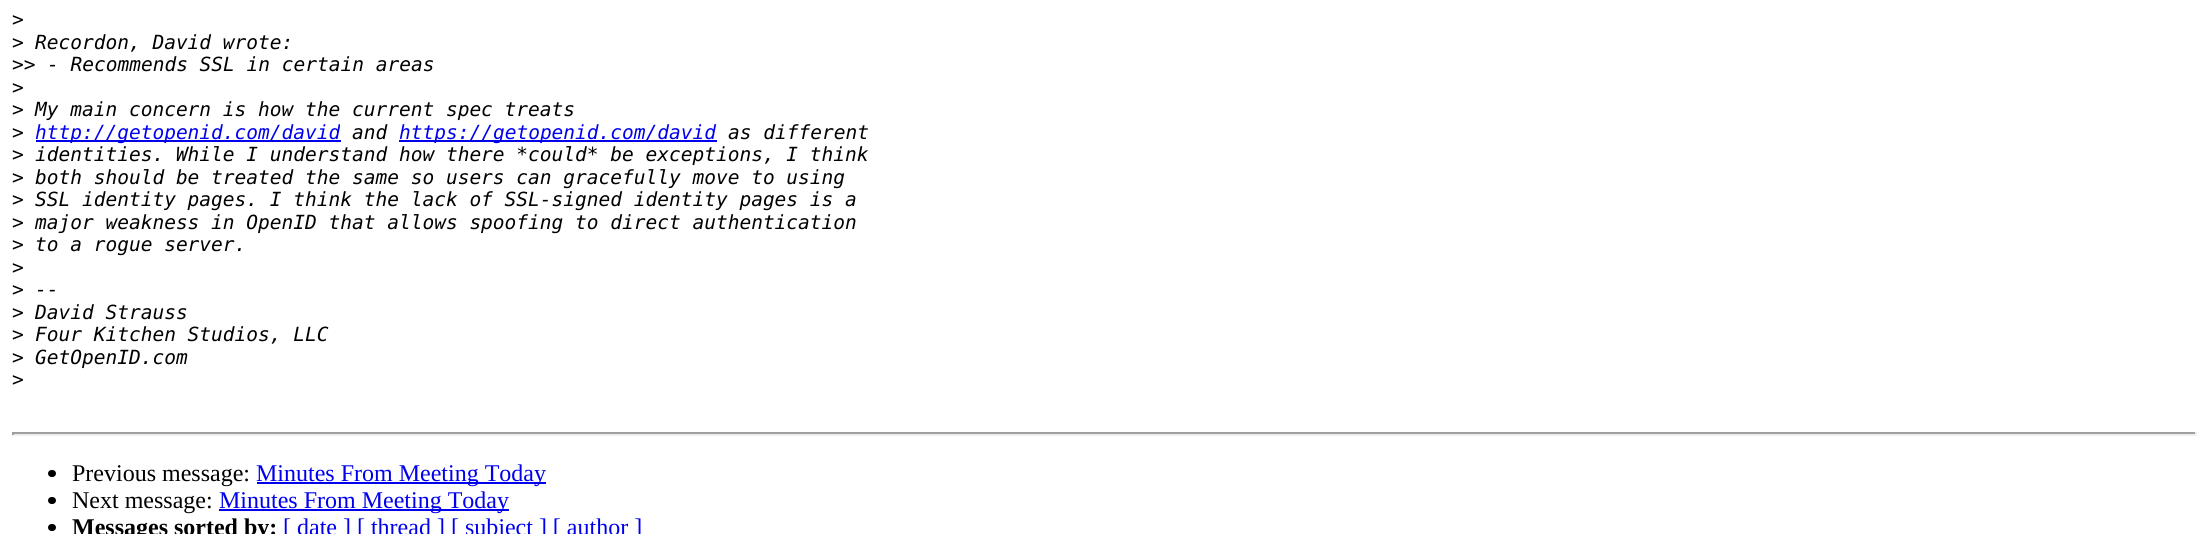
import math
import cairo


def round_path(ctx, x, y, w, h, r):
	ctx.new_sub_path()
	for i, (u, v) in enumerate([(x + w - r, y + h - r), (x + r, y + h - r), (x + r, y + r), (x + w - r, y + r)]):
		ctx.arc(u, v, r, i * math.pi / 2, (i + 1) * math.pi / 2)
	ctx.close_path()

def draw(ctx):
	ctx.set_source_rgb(1, 1, 1)
	ctx.paint()
	ctx.select_font_face('DejaVu Sans Mono')
	ctx.set_font_size(19.5)
	ctx.set_source_rgb(0, 0, 0)
	ctx.move_to(12, 26)
	ctx.show_text('>')
	ctx.move_to(12, 49)
	ctx.show_text('>')
	ctx.select_font_face('DejaVu Sans Mono', cairo.FONT_SLANT_ITALIC)
	ctx.move_to(35, 49)
	ctx.show_text('Recordon, David wrote:')
	ctx.select_font_face('DejaVu Sans Mono')
	ctx.move_to(12, 71)
	ctx.show_text('>>')
	ctx.select_font_face('DejaVu Sans Mono', cairo.FONT_SLANT_ITALIC)
	ctx.move_to(47, 71)
	ctx.show_text('- Recommends SSL in certain areas')
	ctx.select_font_face('DejaVu Sans Mono')
	ctx.move_to(12, 94)
	ctx.show_text('>')
	ctx.move_to(12, 116)
	ctx.show_text('>')
	ctx.select_font_face('DejaVu Sans Mono', cairo.FONT_SLANT_ITALIC)
	ctx.move_to(35, 116)
	ctx.show_text('My main concern is how the current spec treats')
	ctx.select_font_face('DejaVu Sans Mono')
	ctx.move_to(12, 139)
	ctx.show_text('>')
	ctx.set_source_rgb(0, 0, 0.933)
	ctx.rectangle(36, 140, 305, 2)
	ctx.fill()
	ctx.select_font_face('DejaVu Sans Mono', cairo.FONT_SLANT_ITALIC)
	ctx.move_to(35, 139)
	ctx.show_text('http://getopenid.com/david')
	ctx.set_source_rgb(0, 0, 0)
	ctx.move_to(352, 139)
	ctx.show_text('and')
	ctx.set_source_rgb(0, 0, 0.933)
	ctx.rectangle(399, 140, 318, 2)
	ctx.fill()
	ctx.move_to(399, 139)
	ctx.show_text('https://getopenid.com/david')
	ctx.set_source_rgb(0, 0, 0)
	ctx.move_to(728, 139)
	ctx.show_text('as different')
	ctx.select_font_face('DejaVu Sans Mono')
	ctx.move_to(12, 161)
	ctx.show_text('>')
	ctx.select_font_face('DejaVu Sans Mono', cairo.FONT_SLANT_ITALIC)
	ctx.move_to(35, 161)
	ctx.show_text('identities. While I understand how there *could* be exceptions, I think')
	ctx.select_font_face('DejaVu Sans Mono')
	ctx.move_to(12, 184)
	ctx.show_text('>')
	ctx.select_font_face('DejaVu Sans Mono', cairo.FONT_SLANT_ITALIC)
	ctx.move_to(35, 184)
	ctx.show_text('both should be treated the same so users can gracefully move to using')
	ctx.select_font_face('DejaVu Sans Mono')
	ctx.move_to(12, 206)
	ctx.show_text('>')
	ctx.select_font_face('DejaVu Sans Mono', cairo.FONT_SLANT_ITALIC)
	ctx.move_to(35, 206)
	ctx.show_text('SSL identity pages. I think the lack of SSL-signed identity pages is a')
	ctx.select_font_face('DejaVu Sans Mono')
	ctx.move_to(12, 229)
	ctx.show_text('>')
	ctx.select_font_face('DejaVu Sans Mono', cairo.FONT_SLANT_ITALIC)
	ctx.move_to(35, 229)
	ctx.show_text('major weakness in OpenID that allows spoofing to direct authentication')
	ctx.select_font_face('DejaVu Sans Mono')
	ctx.move_to(12, 251)
	ctx.show_text('>')
	ctx.select_font_face('DejaVu Sans Mono', cairo.FONT_SLANT_ITALIC)
	ctx.move_to(35, 251)
	ctx.show_text('to a rogue server.')
	ctx.select_font_face('DejaVu Sans Mono')
	ctx.move_to(12, 274)
	ctx.show_text('>')
	ctx.move_to(12, 296)
	ctx.show_text('>')
	ctx.select_font_face('DejaVu Sans Mono', cairo.FONT_SLANT_ITALIC)
	ctx.move_to(35, 296)
	ctx.show_text('--')
	ctx.select_font_face('DejaVu Sans Mono')
	ctx.move_to(12, 319)
	ctx.show_text('>')
	ctx.select_font_face('DejaVu Sans Mono', cairo.FONT_SLANT_ITALIC)
	ctx.move_to(35, 319)
	ctx.show_text('David Strauss')
	ctx.select_font_face('DejaVu Sans Mono')
	ctx.move_to(12, 341)
	ctx.show_text('>')
	ctx.select_font_face('DejaVu Sans Mono', cairo.FONT_SLANT_ITALIC)
	ctx.move_to(35, 341)
	ctx.show_text('Four Kitchen Studios, LLC')
	ctx.select_font_face('DejaVu Sans Mono')
	ctx.move_to(12, 364)
	ctx.show_text('>')
	ctx.select_font_face('DejaVu Sans Mono', cairo.FONT_SLANT_ITALIC)
	ctx.move_to(35, 364)
	ctx.show_text('GetOpenID.com')
	ctx.select_font_face('DejaVu Sans Mono')
	ctx.move_to(12, 386)
	ctx.show_text('>')
	ctx.set_source_rgb(0.624, 0.624, 0.624)
	ctx.rectangle(12, 432, 2184, 2)
	ctx.fill()
	ctx.set_source_rgb(0.933, 0.933, 0.933)
	ctx.rectangle(2195, 432, 2, 3)
	ctx.rectangle(12, 434, 2184, 2)
	ctx.fill()
	ctx.set_source_rgb(0.624, 0.624, 0.624)
	ctx.rectangle(12, 432, 2, 3)
	ctx.fill()
	ctx.set_source_rgb(0, 0, 0)
	round_path(ctx, 48, 470, 8, 7, 3.5)
	ctx.fill()
	ctx.select_font_face('Liberation Serif')
	ctx.set_font_size(24)
	ctx.move_to(72, 481)
	ctx.show_text('Previous message:')
	ctx.set_source_rgb(0, 0, 0.933)
	ctx.rectangle(257, 482, 289, 2)
	ctx.fill()
	ctx.move_to(256, 481)
	ctx.show_text('Minutes From Meeting Today')
	ctx.set_source_rgb(0, 0, 0)
	round_path(ctx, 48, 497, 8, 7, 3.5)
	ctx.fill()
	ctx.move_to(72, 508)
	ctx.show_text('Next message:')
	ctx.set_source_rgb(0, 0, 0.933)
	ctx.rectangle(219, 509, 290, 2)
	ctx.fill()
	ctx.move_to(219, 508)
	ctx.show_text('Minutes From Meeting Today')
	ctx.set_source_rgb(0, 0, 0)
	round_path(ctx, 48, 524, 8, 7, 3.5)
	ctx.fill()
	ctx.select_font_face('Liberation Serif', cairo.FONT_SLANT_NORMAL, cairo.FONT_WEIGHT_BOLD)
	ctx.move_to(72, 535)
	ctx.show_text('Messages sorted by:')
	ctx.select_font_face('Liberation Serif')
	ctx.set_source_rgb(0, 0, 0.933)
	ctx.move_to(283, 535)
	ctx.show_text('[ date ] [ thread ] [ subject ] [ author ]')


surface = cairo.ImageSurface(cairo.FORMAT_RGB24, 2208, 534)
ctx = cairo.Context(surface)
options = cairo.FontOptions()
options.set_hint_metrics(cairo.HINT_METRICS_OFF)
options.set_hint_style(cairo.HINT_STYLE_NONE)
ctx.set_font_options(options)
ctx.set_miter_limit(4)
draw(ctx)
surface.write_to_png('image.png')
